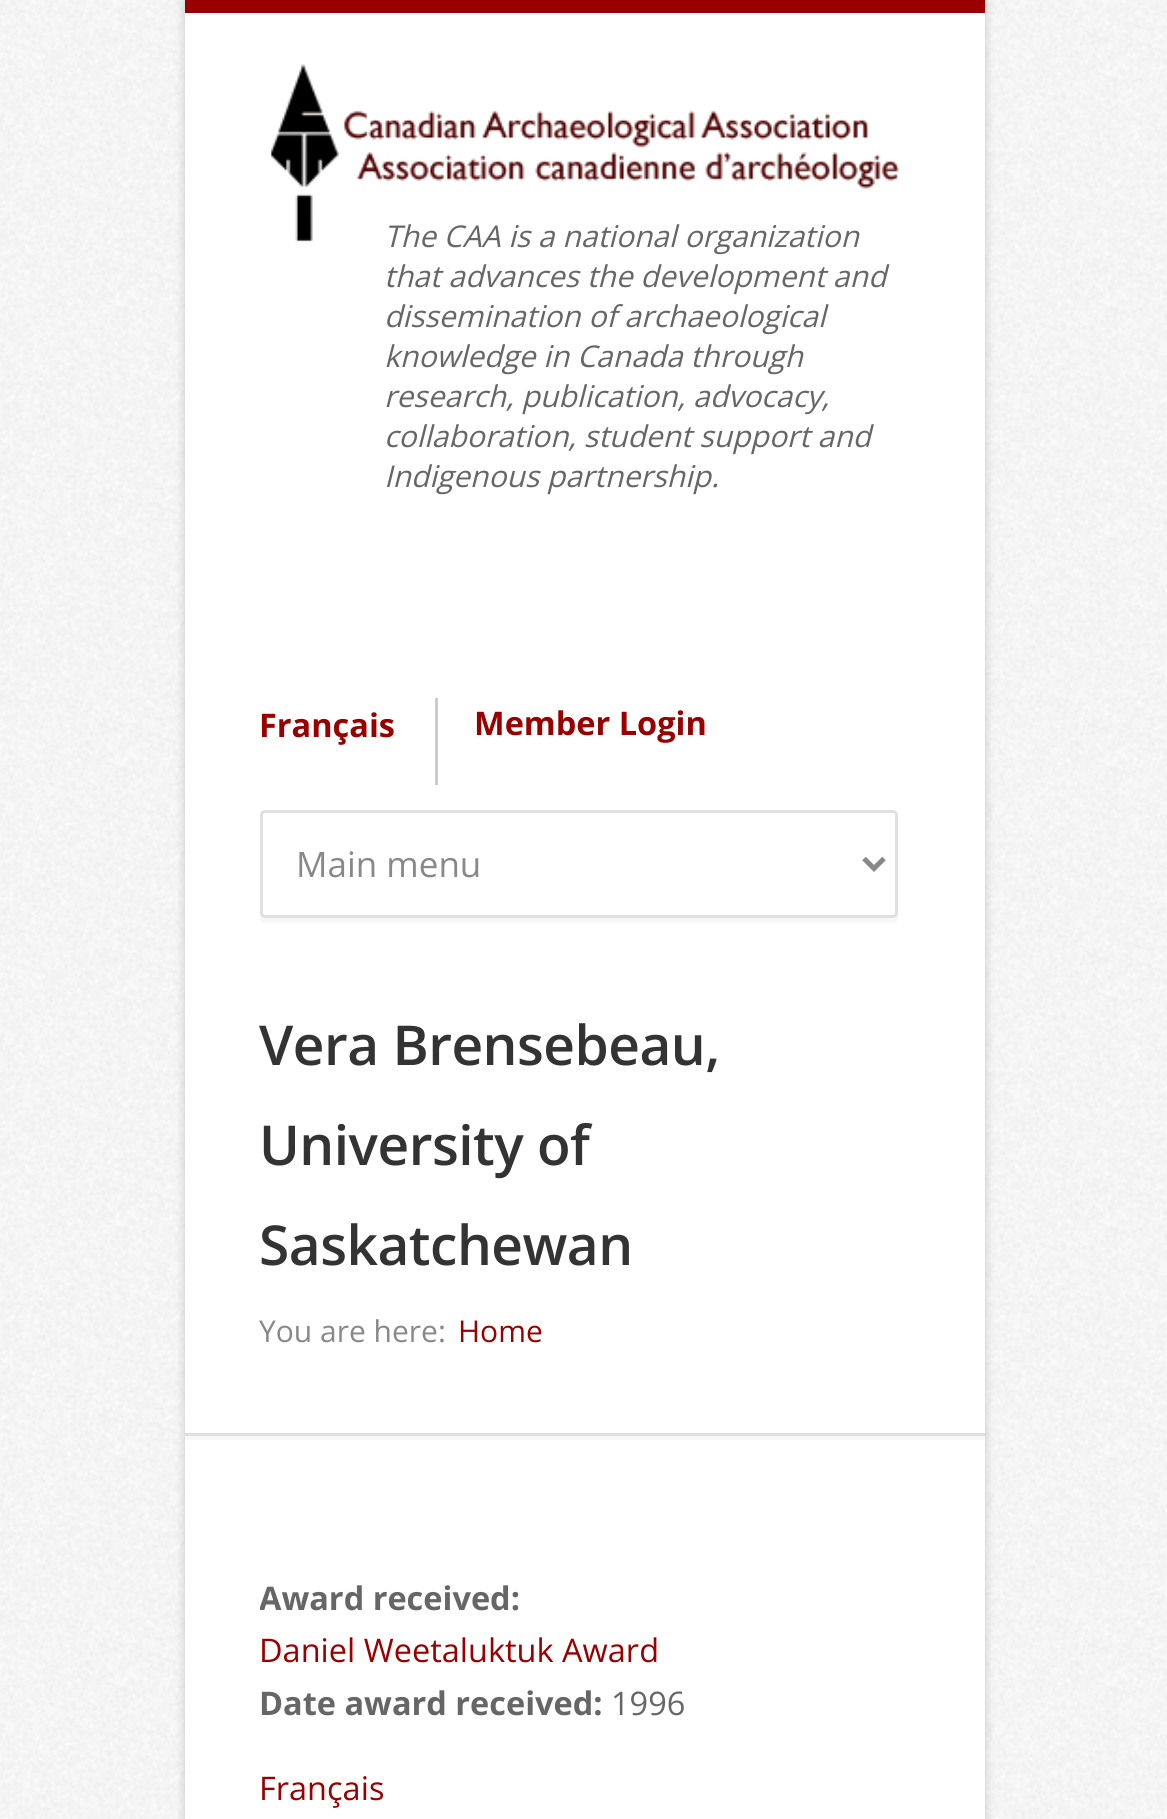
import math
import cairo


def write_spaced(ctx, x, y, s, letter, word):
	ctx.move_to(x, y)
	for ch in s:
		ctx.show_text(ch)
		ctx.rel_move_to(letter + word * (ch == ' '), 0)

def round_path(ctx, x, y, w, h, r):
	ctx.new_sub_path()
	for i, (u, v) in enumerate([(x + w - r, y + h - r), (x + r, y + h - r), (x + r, y + r), (x + w - r, y + r)]):
		ctx.arc(u, v, r, i * math.pi / 2, (i + 1) * math.pi / 2)
	ctx.close_path()

def blur_box(ctx, x, y, w, h, r, blur, alpha):
	ctx.push_group_with_content(cairo.CONTENT_ALPHA)
	ctx.set_operator(cairo.OPERATOR_SOURCE)
	for i in range(15, -16, -2):
		e = blur * i / 6
		if min(w, h) + 2 * e > 0:
			ctx.set_source_rgba(0, 0, 0, alpha * math.erfc((i - 1) / 8.5) / 2)
			round_path(ctx, x - e, y - e, w + 2 * e, h + 2 * e, max(0, min(r + e + blur * .6, min(w, h) / 2 + e)))
			ctx.fill()
	ctx.mask(ctx.pop_group())

def paste(ctx, path, x, y, w, h):
	ctx.save()
	ctx.set_source_surface(cairo.ImageSurface.create_from_png(path), x, y)
	ctx.rectangle(x, y, w, h)
	ctx.fill()
	ctx.restore()

def draw(ctx):
	ctx.set_source_rgb(1, 1, 1)
	ctx.paint()
	paste(ctx, 'media/1.png', 0, 0, 1167, 1819)
	ctx.set_source_rgb(0, 0, 0)
	blur_box(ctx, 185, 0, 800, 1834, 0, 5, 0.2)
	ctx.set_source_rgb(1, 1, 1)
	ctx.rectangle(185, 13, 800, 1806)
	ctx.fill()
	ctx.set_source_rgb(0.6, 0, 0)
	ctx.rectangle(185, 0, 800, 13)
	ctx.fill()
	paste(ctx, 'media/2.png', 270, 64, 630, 178)
	ctx.select_font_face('Open Sans', cairo.FONT_SLANT_ITALIC)
	ctx.set_font_size(30)
	ctx.set_source_rgb(0.4, 0.4, 0.4)
	for x, y, s in [
		(384, 247, 'The CAA is a national organization'),
		(384, 287, 'that advances the development and'),
		(384, 327, 'dissemination of archaeological'),
		(384, 367, 'knowledge in Canada through'),
		(384, 407, 'research, publication, advocacy,'),
		(384, 447, 'collaboration, student support and'),
		(384, 487, 'Indigenous partnership.'),
	]:
		ctx.move_to(x, y)
		ctx.show_text(s)
	ctx.set_source_rgb(0.8, 0.8, 0.8)
	ctx.rectangle(435, 698, 3, 87)
	ctx.fill()
	ctx.select_font_face('Open Sans', cairo.FONT_SLANT_NORMAL, cairo.FONT_WEIGHT_BOLD)
	ctx.set_font_size(32.5)
	ctx.set_source_rgb(0.6, 0, 0)
	ctx.move_to(259, 737)
	ctx.show_text('Français')
	ctx.move_to(474, 735)
	ctx.show_text('Member Login')
	ctx.set_source_rgb(0.969, 0.969, 0.969)
	ctx.new_path()
	ctx.move_to(260, 912)
	ctx.line_to(260, 918)
	ctx.curve_to(260, 921, 262, 923, 265, 923)
	ctx.line_to(893, 923)
	ctx.curve_to(896, 923, 898, 921, 898, 918)
	ctx.line_to(898, 820)
	ctx.line_to(898, 818)
	ctx.line_to(898, 912)
	ctx.curve_to(898, 915, 895, 918, 892, 918)
	ctx.line_to(265, 918)
	ctx.curve_to(262, 918, 260, 915, 260, 912)
	ctx.close_path()
	ctx.fill()
	ctx.set_source_rgb(1, 1, 1)
	round_path(ctx, 261.5, 811.5, 635, 105, 3.5)
	ctx.fill_preserve()
	ctx.set_source_rgb(0.878, 0.878, 0.878)
	ctx.set_line_width(3)
	ctx.stroke()
	ctx.new_path()
	ctx.move_to(864, 858.5)
	ctx.line_to(874, 868.5)
	ctx.line_to(884, 858.5)
	ctx.set_source_rgb(0.533, 0.533, 0.533)
	ctx.set_line_width(5)
	ctx.stroke()
	ctx.select_font_face('Open Sans')
	ctx.set_font_size(35)
	ctx.move_to(296, 877)
	ctx.show_text('Main menu')
	ctx.set_source_rgb(0.969, 0.969, 0.969)
	ctx.rectangle(185, 1436, 800, 4)
	ctx.fill()
	ctx.set_source_rgb(0.878, 0.878, 0.878)
	ctx.rectangle(185, 1433, 800, 3)
	ctx.fill()
	ctx.select_font_face('Open Sans SemiBold')
	ctx.set_font_size(55)
	ctx.set_source_rgb(0.2, 0.2, 0.2)
	for x, y, s in [
		(259, 1065, 'Vera Brensebeau,'),
		(259, 1165, 'University of'),
		(259, 1265, 'Saskatchewan'),
	]:
		write_spaced(ctx, x, y, s, -0.5, 0)
	ctx.select_font_face('Open Sans')
	ctx.set_font_size(30)
	ctx.set_source_rgb(0.533, 0.533, 0.533)
	ctx.move_to(259, 1342)
	ctx.show_text('You are here:')
	ctx.set_source_rgb(0.6, 0, 0)
	ctx.move_to(458, 1342)
	ctx.show_text('Home')
	ctx.save()
	ctx.rectangle(260, 1435, 650, 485)
	ctx.clip()
	ctx.select_font_face('Open Sans', cairo.FONT_SLANT_NORMAL, cairo.FONT_WEIGHT_BOLD)
	ctx.set_font_size(32.5)
	ctx.set_source_rgb(0.4, 0.4, 0.4)
	ctx.move_to(259, 1610)
	ctx.show_text('Award received:')
	ctx.restore()
	ctx.set_font_size(32.5)
	ctx.move_to(259, 1662)
	ctx.show_text('Daniel Weetaluktuk Award')
	ctx.select_font_face('Open Sans', cairo.FONT_SLANT_NORMAL, cairo.FONT_WEIGHT_BOLD)
	ctx.set_source_rgb(0.4, 0.4, 0.4)
	ctx.move_to(259, 1715)
	ctx.show_text('Date award received:')
	ctx.select_font_face('Open Sans')
	ctx.move_to(611, 1715)
	ctx.show_text('1996')
	ctx.set_source_rgb(0.6, 0, 0)
	ctx.move_to(259, 1800)
	ctx.show_text('Français')


surface = cairo.ImageSurface(cairo.FORMAT_RGB24, 1167, 1819)
ctx = cairo.Context(surface)
options = cairo.FontOptions()
options.set_hint_metrics(cairo.HINT_METRICS_OFF)
options.set_hint_style(cairo.HINT_STYLE_NONE)
ctx.set_font_options(options)
ctx.set_miter_limit(4)
draw(ctx)
surface.write_to_png('image.png')
